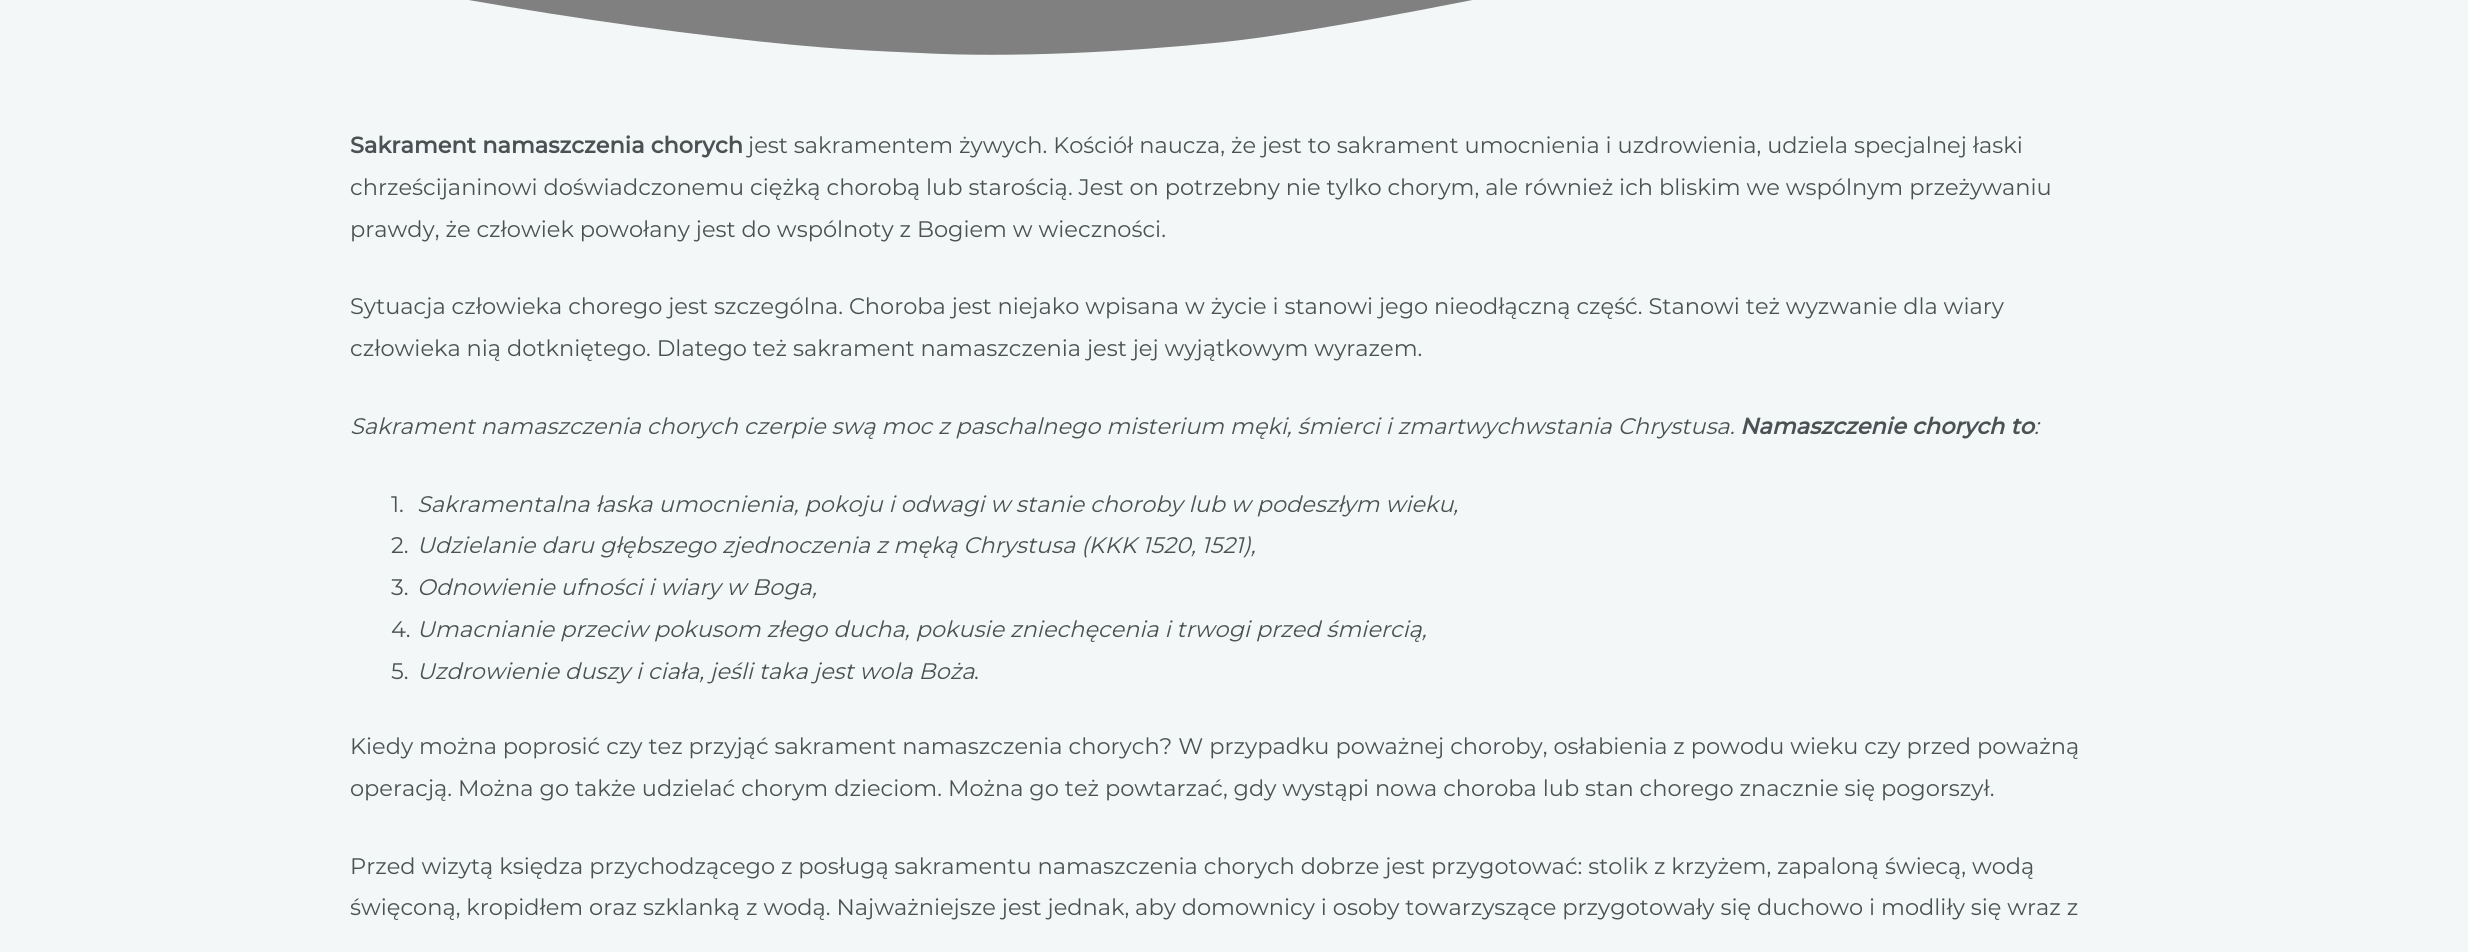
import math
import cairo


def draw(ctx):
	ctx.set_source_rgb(0.953, 0.965, 0.965)
	ctx.paint()
	ctx.set_source_rgb(0.502, 0.502, 0.502)
	ctx.rectangle(468, 0, 1005, 55)
	ctx.fill()
	ctx.set_source_rgb(0.953, 0.965, 0.965)
	ctx.new_path()
	ctx.move_to(920, 53)
	ctx.curve_to(1011, 58, 1127, 52, 1224, 42)
	ctx.curve_to(1319, 32, 1510, -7, 1629, -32)
	ctx.curve_to(1934, -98, 2167, -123, 2404, -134)
	ctx.curve_to(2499, -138, 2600, -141, 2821, -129)
	ctx.curve_to(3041, -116, 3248, -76, 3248, -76)
	ctx.line_to(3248, 66)
	ctx.line_to(-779, 66)
	ctx.line_to(-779, 4)
	ctx.curve_to(-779, 4, -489, -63, -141, -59)
	ctx.curve_to(17, -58, 233, -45, 399, -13)
	ctx.curve_to(484, 4, 609, 24, 720, 37)
	ctx.curve_to(829, 50, 879, 51, 920, 53)
	ctx.close_path()
	ctx.fill()
	ctx.select_font_face('Montserrat', cairo.FONT_SLANT_NORMAL, cairo.FONT_WEIGHT_BOLD)
	ctx.set_font_size(22.5)
	ctx.set_source_rgb(0.298, 0.322, 0.325)
	ctx.move_to(350, 153)
	ctx.show_text('Sakrament namaszczenia chorych')
	ctx.select_font_face('Montserrat')
	for x, y, s in [
		(748, 153, 'jest sakramentem żywych. Kościół naucza, że jest to sakrament umocnienia i uzdrowienia, udziela specjalnej łaski'),
		(350, 195, 'chrześcijaninowi doświadczonemu ciężką chorobą lub starością. Jest on potrzebny nie tylko chorym, ale również ich bliskim we wspólnym przeżywaniu'),
		(350, 237, 'prawdy, że człowiek powołany jest do wspólnoty z Bogiem w wieczności.'),
		(350, 314, 'Sytuacja człowieka chorego jest szczególna. Choroba jest niejako wpisana w życie i stanowi jego nieodłączną część. Stanowi też wyzwanie dla wiary'),
		(350, 356, 'człowieka nią dotkniętego. Dlatego też sakrament namaszczenia jest jej wyjątkowym wyrazem.'),
	]:
		ctx.move_to(x, y)
		ctx.show_text(s)
	ctx.select_font_face('Montserrat', cairo.FONT_SLANT_ITALIC)
	ctx.move_to(350, 434)
	ctx.show_text('Sakrament namaszczenia chorych czerpie swą moc z paschalnego misterium męki, śmierci i zmartwychwstania Chrystusa.')
	ctx.select_font_face('Montserrat', cairo.FONT_SLANT_ITALIC, cairo.FONT_WEIGHT_BOLD)
	ctx.move_to(1740, 434)
	ctx.show_text('Namaszczenie chorych to')
	ctx.select_font_face('Montserrat', cairo.FONT_SLANT_ITALIC)
	ctx.move_to(2034, 434)
	ctx.show_text(':')
	ctx.select_font_face('Montserrat')
	ctx.move_to(391, 512)
	ctx.show_text('1.')
	ctx.select_font_face('Montserrat', cairo.FONT_SLANT_ITALIC)
	ctx.move_to(417, 512)
	ctx.show_text('Sakramentalna łaska umocnienia, pokoju i odwagi w stanie choroby lub w podeszłym wieku,')
	ctx.select_font_face('Montserrat')
	ctx.move_to(391, 553)
	ctx.show_text('2.')
	ctx.select_font_face('Montserrat', cairo.FONT_SLANT_ITALIC)
	ctx.move_to(417, 553)
	ctx.show_text('Udzielanie daru głębszego zjednoczenia z męką Chrystusa (KKK 1520, 1521),')
	ctx.select_font_face('Montserrat')
	ctx.move_to(391, 595)
	ctx.show_text('3.')
	ctx.select_font_face('Montserrat', cairo.FONT_SLANT_ITALIC)
	ctx.move_to(417, 595)
	ctx.show_text('Odnowienie ufności i wiary w Boga,')
	ctx.select_font_face('Montserrat')
	ctx.move_to(391, 637)
	ctx.show_text('4.')
	ctx.select_font_face('Montserrat', cairo.FONT_SLANT_ITALIC)
	ctx.move_to(417, 637)
	ctx.show_text('Umacnianie przeciw pokusom złego ducha, pokusie zniechęcenia i trwogi przed śmiercią,')
	ctx.select_font_face('Montserrat')
	ctx.move_to(391, 679)
	ctx.show_text('5.')
	ctx.select_font_face('Montserrat', cairo.FONT_SLANT_ITALIC)
	ctx.move_to(417, 679)
	ctx.show_text('Uzdrowienie duszy i ciała, jeśli taka jest wola Boża')
	ctx.select_font_face('Montserrat')
	for x, y, s in [
		(974, 679, '.'),
		(350, 754, 'Kiedy można poprosić czy tez przyjąć sakrament namaszczenia chorych? W przypadku poważnej choroby, osłabienia z powodu wieku czy przed poważną'),
		(350, 796, 'operacją. Można go także udzielać chorym dzieciom. Można go też powtarzać, gdy wystąpi nowa choroba lub stan chorego znacznie się pogorszył.'),
		(350, 874, 'Przed wizytą księdza przychodzącego z posługą sakramentu namaszczenia chorych dobrze jest przygotować: stolik z krzyżem, zapaloną świecą, wodą'),
		(350, 915, 'święconą, kropidłem oraz szklanką z wodą. Najważniejsze jest jednak, aby domownicy i osoby towarzyszące przygotowały się duchowo i modliły się wraz z'),
	]:
		ctx.move_to(x, y)
		ctx.show_text(s)


surface = cairo.ImageSurface(cairo.FORMAT_RGB24, 2468, 952)
ctx = cairo.Context(surface)
options = cairo.FontOptions()
options.set_hint_metrics(cairo.HINT_METRICS_OFF)
options.set_hint_style(cairo.HINT_STYLE_NONE)
ctx.set_font_options(options)
ctx.set_miter_limit(4)
draw(ctx)
surface.write_to_png('image.png')
